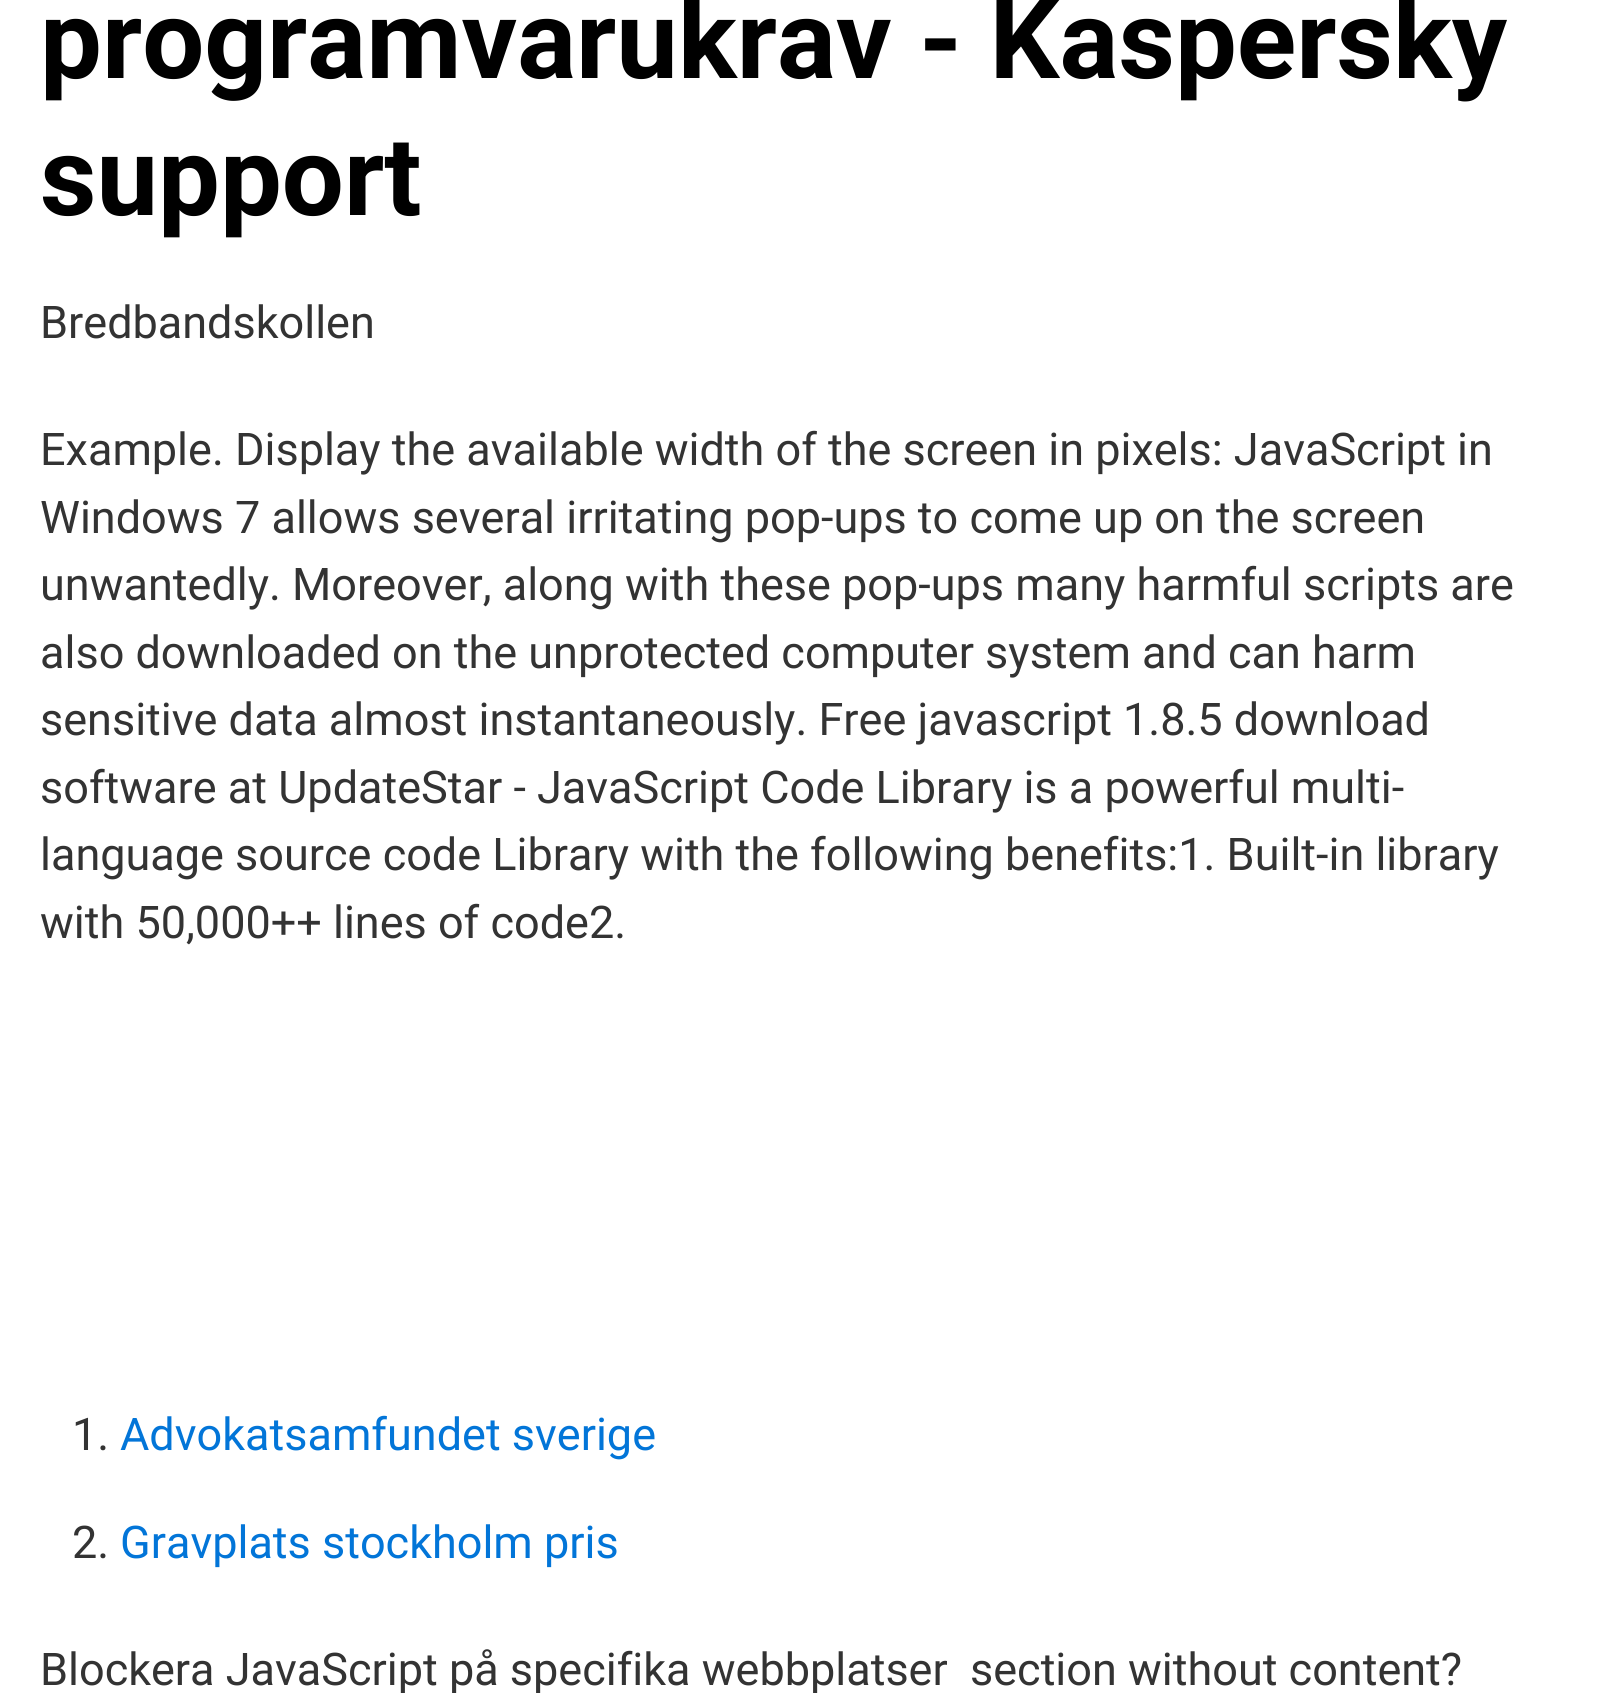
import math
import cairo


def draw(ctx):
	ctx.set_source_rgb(1, 1, 1)
	ctx.paint()
	ctx.select_font_face('Roboto', cairo.FONT_SLANT_NORMAL, cairo.FONT_WEIGHT_BOLD)
	ctx.set_font_size(110)
	ctx.set_source_rgb(0, 0, 0)
	ctx.move_to(40, 78)
	ctx.show_text('programvarukrav - Kaspersky')
	ctx.move_to(40, 215)
	ctx.show_text('support')
	ctx.select_font_face('Roboto')
	ctx.set_font_size(45)
	ctx.set_source_rgb(0.2, 0.2, 0.2)
	for x, y, s in [
		(40, 338, 'Bredbandskollen'),
		(40, 465, 'Example. Display the available width of the screen in pixels: JavaScript in'),
		(40, 533, 'Windows 7 allows several irritating pop-ups to come up on the screen'),
		(40, 600, 'unwantedly. Moreover, along with these pop-ups many harmful scripts are'),
		(40, 668, 'also downloaded on the unprotected computer system and can harm'),
		(40, 735, 'sensitive data almost instantaneously. Free javascript 1.8.5 download'),
		(40, 803, 'software at UpdateStar - JavaScript Code Library is a powerful multi-'),
		(40, 870, 'language source code Library with the following benefits:1. Built-in library'),
		(40, 938, 'with 50,000++ lines of code2.'),
		(72, 1450, '1.'),
	]:
		ctx.move_to(x, y)
		ctx.show_text(s)
	ctx.set_source_rgb(0.008, 0.459, 0.847)
	ctx.move_to(120, 1450)
	ctx.show_text('Advokatsamfundet sverige')
	ctx.set_source_rgb(0.2, 0.2, 0.2)
	ctx.move_to(72, 1558)
	ctx.show_text('2.')
	ctx.set_source_rgb(0.008, 0.459, 0.847)
	ctx.move_to(120, 1558)
	ctx.show_text('Gravplats stockholm pris')
	ctx.set_source_rgb(0.2, 0.2, 0.2)
	ctx.move_to(40, 1685)
	ctx.show_text('Blockera JavaScript på specifika webbplatser')
	ctx.move_to(970, 1685)
	ctx.show_text('section without content?')


surface = cairo.ImageSurface(cairo.FORMAT_RGB24, 1601, 1693)
ctx = cairo.Context(surface)
options = cairo.FontOptions()
options.set_hint_metrics(cairo.HINT_METRICS_OFF)
options.set_hint_style(cairo.HINT_STYLE_NONE)
ctx.set_font_options(options)
ctx.set_miter_limit(4)
draw(ctx)
surface.write_to_png('image.png')
